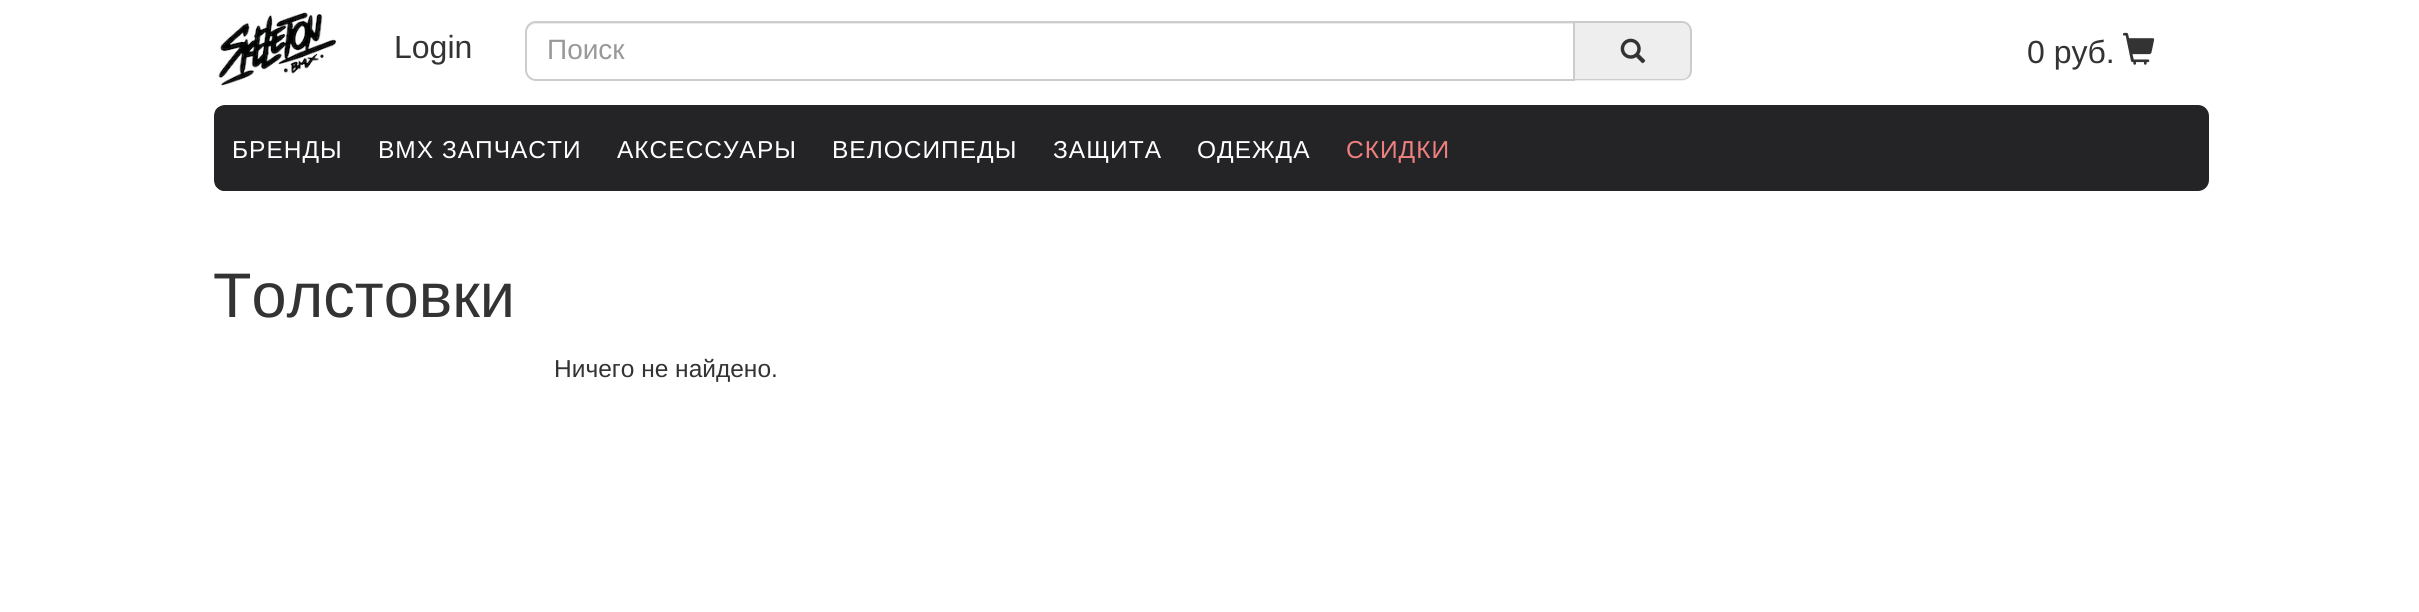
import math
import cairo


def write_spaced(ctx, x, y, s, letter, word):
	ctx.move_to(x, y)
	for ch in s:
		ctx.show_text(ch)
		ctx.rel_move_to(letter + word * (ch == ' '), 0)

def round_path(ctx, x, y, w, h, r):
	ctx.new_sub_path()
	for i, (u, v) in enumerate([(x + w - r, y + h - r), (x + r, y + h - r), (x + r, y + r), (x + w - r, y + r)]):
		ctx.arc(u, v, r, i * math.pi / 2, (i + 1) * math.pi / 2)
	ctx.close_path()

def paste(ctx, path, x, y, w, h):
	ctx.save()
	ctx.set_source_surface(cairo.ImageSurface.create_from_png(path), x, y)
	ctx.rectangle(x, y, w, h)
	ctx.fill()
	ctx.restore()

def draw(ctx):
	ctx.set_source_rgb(1, 1, 1)
	ctx.paint()
	paste(ctx, 'media/1.png', 218, 12, 119, 74)
	ctx.select_font_face('Liberation Sans')
	ctx.set_font_size(32)
	ctx.set_source_rgb(0.2, 0.2, 0.2)
	ctx.move_to(394, 58)
	ctx.show_text('Login')
	ctx.set_source_rgb(0.925, 0.925, 0.925)
	ctx.new_path()
	ctx.move_to(536, 24)
	ctx.line_to(1573, 24)
	ctx.line_to(1573, 23)
	ctx.line_to(536, 23)
	ctx.curve_to(530, 23, 527, 28, 527, 33)
	ctx.curve_to(527, 28, 531, 24, 536, 24)
	ctx.close_path()
	ctx.fill()
	ctx.new_path()
	ctx.move_to(536, 22)
	ctx.line_to(1574, 22)
	ctx.line_to(1574, 80)
	ctx.line_to(536, 80)
	ctx.curve_to(530.5, 80, 526, 75.5, 526, 70)
	ctx.line_to(526, 32)
	ctx.curve_to(526, 26.5, 530.5, 22, 536, 22)
	ctx.close_path()
	ctx.set_source_rgb(0.8, 0.8, 0.8)
	ctx.stroke()
	ctx.set_font_size(28)
	ctx.set_source_rgb(0.6, 0.6, 0.6)
	ctx.move_to(547, 59)
	ctx.show_text('Поиск')
	ctx.set_source_rgb(0.933, 0.933, 0.933)
	ctx.new_path()
	ctx.move_to(1575, 21)
	ctx.line_to(1681, 21)
	ctx.curve_to(1687, 21, 1692, 26, 1692, 32)
	ctx.line_to(1692, 70)
	ctx.curve_to(1692, 76, 1687, 81, 1681, 81)
	ctx.line_to(1575, 81)
	ctx.close_path()
	ctx.fill()
	ctx.set_source_rgb(0.8, 0.8, 0.8)
	ctx.set_fill_rule(cairo.FILL_RULE_EVEN_ODD)
	ctx.new_path()
	ctx.move_to(1575, 21)
	ctx.line_to(1682, 21)
	ctx.curve_to(1688, 21, 1692, 26, 1692, 32)
	ctx.line_to(1692, 70)
	ctx.curve_to(1692, 76, 1688, 80, 1682, 80)
	ctx.line_to(1575, 80)
	ctx.close_path()
	ctx.move_to(1575, 23)
	ctx.line_to(1682, 23)
	ctx.curve_to(1687, 23, 1690, 27, 1690, 32)
	ctx.line_to(1690, 70)
	ctx.curve_to(1690, 75, 1687, 79, 1682, 79)
	ctx.line_to(1575, 79)
	ctx.close_path()
	ctx.fill()
	paste(ctx, 'media/2.png', 1620, 38, 26, 26)
	ctx.set_font_size(32)
	ctx.set_source_rgb(0.2, 0.2, 0.2)
	ctx.move_to(2027, 63)
	ctx.show_text('0 руб.')
	paste(ctx, 'media/3.png', 2122, 32, 33, 33)
	ctx.set_source_rgb(0.141, 0.141, 0.153)
	round_path(ctx, 214, 105, 1995, 86, 11)
	ctx.fill()
	ctx.save()
	ctx.set_fill_rule(cairo.FILL_RULE_WINDING)
	round_path(ctx, 214, 105, 1995, 86, 11)
	ctx.clip()
	ctx.rectangle(215, 107, 146, 84)
	ctx.fill()
	ctx.restore()
	ctx.set_font_size(24.5)
	ctx.set_source_rgb(1, 1, 1)
	for x, y, s in [
		(232, 158, 'БРЕНДЫ'),
		(378, 158, 'BMX ЗАПЧАСТИ'),
		(617, 158, 'АКСЕССУАРЫ'),
		(832, 158, 'ВЕЛОСИПЕДЫ'),
		(1053, 158, 'ЗАЩИТА'),
		(1197, 158, 'ОДЕЖДА'),
	]:
		write_spaced(ctx, x, y, s, 1, 0)
	ctx.set_source_rgb(0.941, 0.502, 0.502)
	write_spaced(ctx, 1346, 158, 'СКИДКИ', 1, 0)
	ctx.set_font_size(63)
	ctx.set_source_rgb(0.2, 0.2, 0.2)
	ctx.move_to(213, 317)
	ctx.show_text('Толстовки')
	ctx.set_font_size(24.5)
	ctx.move_to(554, 377)
	ctx.show_text('Ничего не найдено.')


surface = cairo.ImageSurface(cairo.FORMAT_RGB24, 2419, 612)
ctx = cairo.Context(surface)
options = cairo.FontOptions()
options.set_hint_metrics(cairo.HINT_METRICS_OFF)
options.set_hint_style(cairo.HINT_STYLE_NONE)
ctx.set_font_options(options)
ctx.set_miter_limit(4)
draw(ctx)
surface.write_to_png('image.png')
